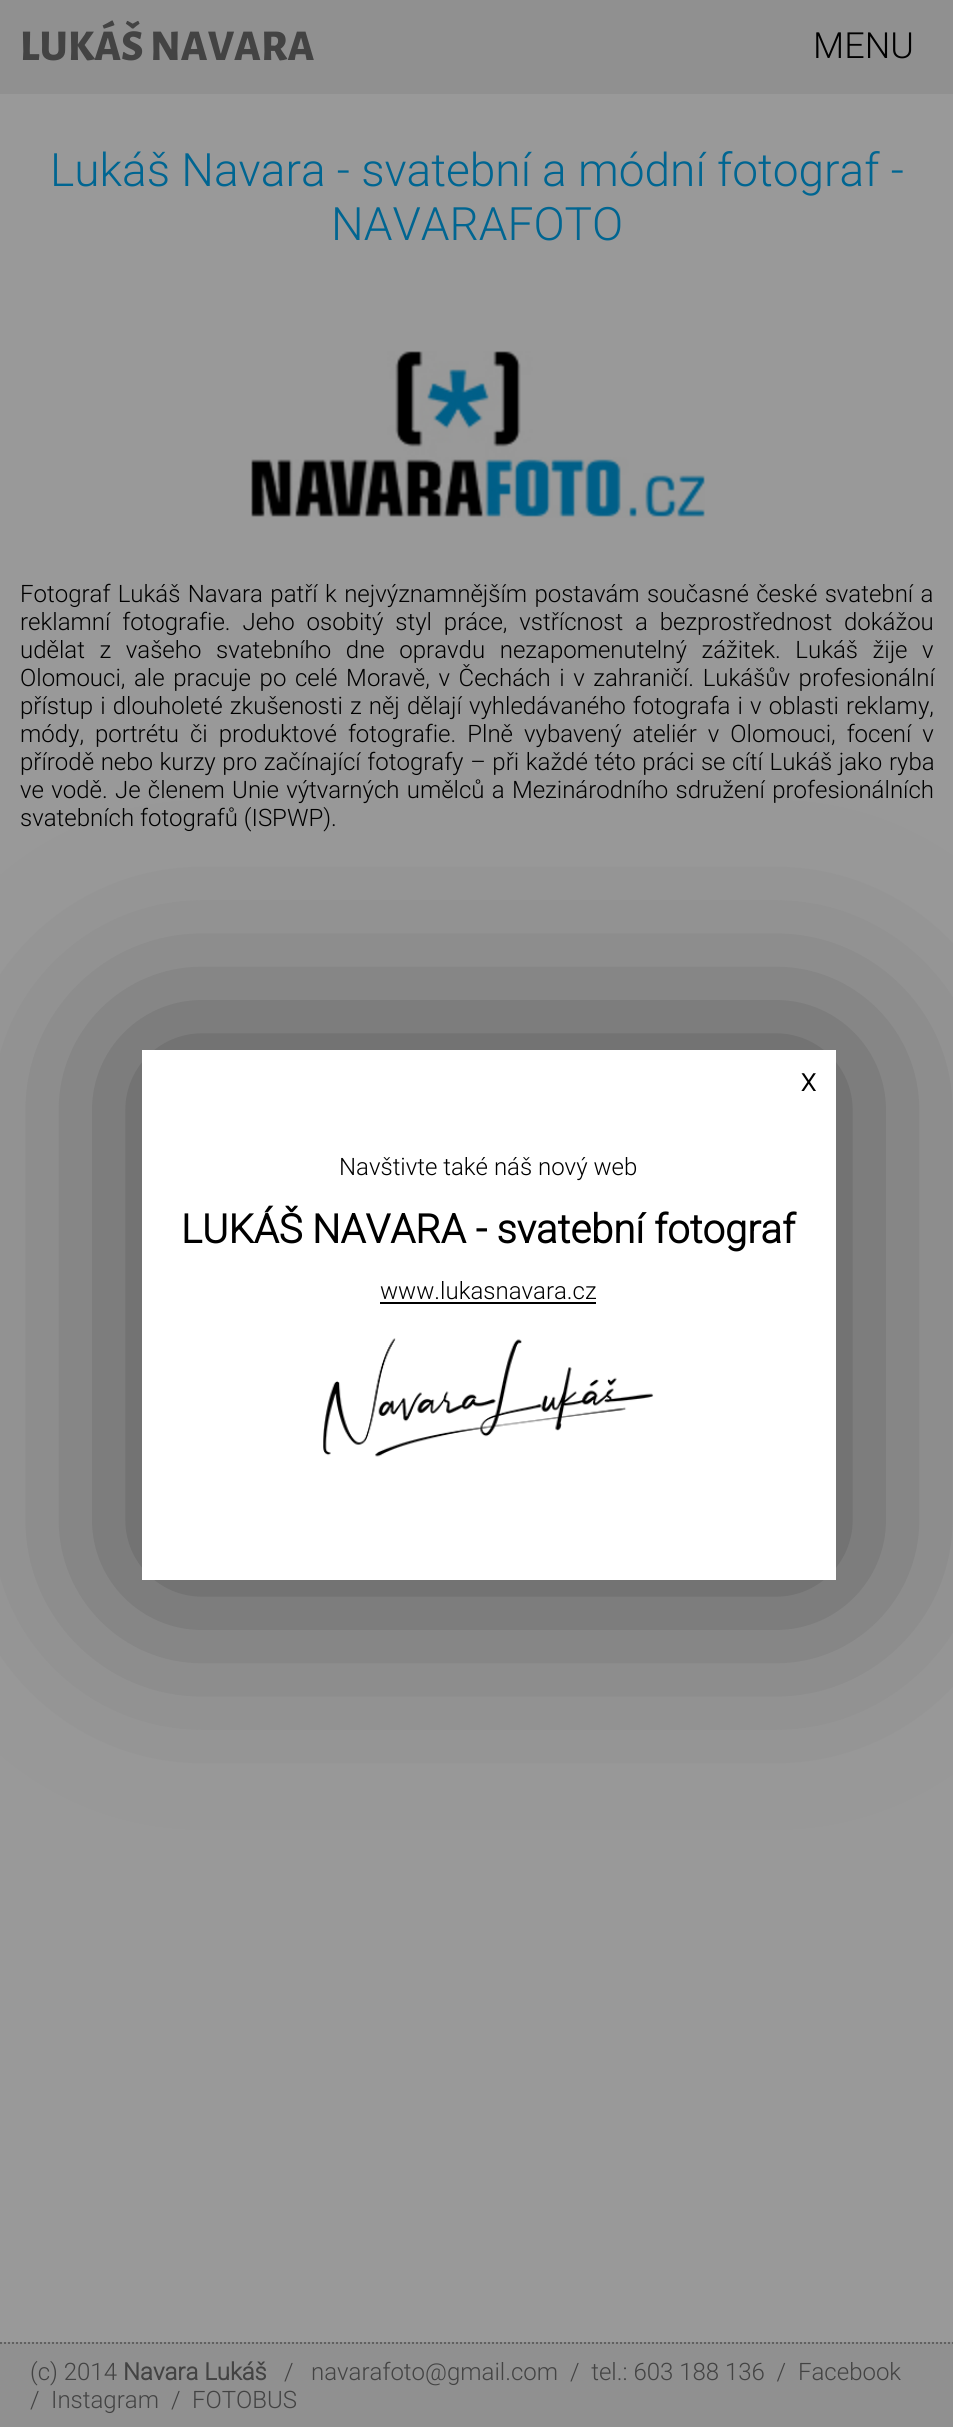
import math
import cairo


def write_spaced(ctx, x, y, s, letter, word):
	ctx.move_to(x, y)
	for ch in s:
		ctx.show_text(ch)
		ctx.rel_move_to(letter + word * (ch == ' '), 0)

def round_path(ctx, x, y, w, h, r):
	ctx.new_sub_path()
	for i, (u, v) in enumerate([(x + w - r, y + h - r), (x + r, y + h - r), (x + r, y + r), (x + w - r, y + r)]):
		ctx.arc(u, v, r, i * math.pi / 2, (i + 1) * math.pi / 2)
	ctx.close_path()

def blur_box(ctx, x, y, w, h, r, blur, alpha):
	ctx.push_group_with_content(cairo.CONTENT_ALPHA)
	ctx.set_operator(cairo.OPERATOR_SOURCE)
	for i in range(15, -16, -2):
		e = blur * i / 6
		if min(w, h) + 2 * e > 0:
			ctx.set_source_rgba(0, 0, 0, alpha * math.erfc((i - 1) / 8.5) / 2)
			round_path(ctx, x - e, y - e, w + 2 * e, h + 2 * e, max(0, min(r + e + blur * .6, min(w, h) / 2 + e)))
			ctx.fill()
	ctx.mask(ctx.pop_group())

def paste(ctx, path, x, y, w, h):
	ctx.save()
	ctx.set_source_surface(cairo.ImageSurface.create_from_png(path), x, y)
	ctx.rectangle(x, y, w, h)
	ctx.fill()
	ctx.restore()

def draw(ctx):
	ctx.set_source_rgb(0.6, 0.6, 0.6)
	ctx.paint()
	ctx.set_source_rgb(0.565, 0.565, 0.565)
	ctx.rectangle(0, 0, 953, 94)
	ctx.fill()
	ctx.select_font_face('Alegreya Sans SC ExtraBold')
	ctx.set_font_size(44)
	ctx.set_source_rgb(0.263, 0.263, 0.263)
	ctx.move_to(20, 60)
	ctx.show_text('LUKÁŠ NAVARA')
	ctx.select_font_face('Roboto Light')
	ctx.set_font_size(36)
	ctx.set_source_rgb(0, 0, 0)
	ctx.move_to(813, 58)
	ctx.show_text('MENU')
	ctx.set_font_size(46)
	ctx.set_source_rgb(0, 0.396, 0.569)
	ctx.move_to(50, 186)
	ctx.show_text('Lukáš Navara - svatební a módní fotograf -')
	ctx.move_to(331, 240)
	ctx.show_text('NAVARAFOTO')
	paste(ctx, 'media/1.png', 251, 351, 454, 167)
	ctx.set_font_size(24)
	ctx.set_source_rgb(0, 0, 0)
	write_spaced(ctx, 20, 602, 'Fotograf Lukáš Navara patří k nejvýznamnějším postavám současné české svatební a', 0, 1.5)
	write_spaced(ctx, 20, 630, 'reklamní fotografie. Jeho osobitý styl práce, vstřícnost a bezprostřednost dokážou', 0, 6)
	write_spaced(ctx, 20, 658, 'udělat z vašeho svatebního dne opravdu nezapomenutelný zážitek. Lukáš žije v', 0, 8.75)
	write_spaced(ctx, 20, 686, 'Olomouci, ale pracuje po celé Moravě, v Čechách i v zahraničí. Lukášův profesionální', 0, 2.75)
	write_spaced(ctx, 20, 714, 'přístup i dlouholeté zkušenosti z něj dělají vyhledávaného fotografa i v oblasti reklamy,', 0, 1.25)
	write_spaced(ctx, 20, 742, 'módy, portrétu či produktové fotografie. Plně vybavený ateliér v Olomouci, focení v', 0, 5.1)
	write_spaced(ctx, 20, 770, 'přírodě nebo kurzy pro začínající fotografy – při každé této práci se cítí Lukáš jako ryba', 0, 0.75)
	write_spaced(ctx, 20, 798, 've vodě. Je členem Unie výtvarných umělců a Mezinárodního sdružení profesionálních', 0, 1.4)
	ctx.move_to(20, 826)
	ctx.show_text('svatebních fotografů (ISPWP).')
	ctx.set_source_rgb(0, 0, 0)
	blur_box(ctx, 142, 1050, 694, 530, 0, 100, 0.5)
	ctx.set_source_rgb(1, 1, 1)
	ctx.rectangle(142, 1050, 694, 530)
	ctx.fill()
	ctx.select_font_face('Roboto', cairo.FONT_SLANT_NORMAL, cairo.FONT_WEIGHT_BOLD)
	ctx.set_source_rgb(0, 0, 0)
	ctx.move_to(801, 1091)
	ctx.show_text('X')
	ctx.select_font_face('Roboto Light')
	ctx.move_to(339, 1175)
	ctx.show_text('Navštivte také náš nový web')
	ctx.select_font_face('Roboto', cairo.FONT_SLANT_NORMAL, cairo.FONT_WEIGHT_BOLD)
	ctx.set_font_size(40)
	ctx.move_to(181, 1243)
	ctx.show_text('LUKÁŠ NAVARA - svatební fotograf')
	ctx.select_font_face('Roboto Light')
	ctx.set_font_size(24)
	ctx.move_to(380, 1299)
	ctx.show_text('www.lukasnavara.cz')
	ctx.rectangle(380, 1302, 216, 2)
	ctx.fill()
	paste(ctx, 'media/2.png', 323, 1338, 331, 119)
	ctx.set_source_rgb(0.565, 0.565, 0.565)
	ctx.rectangle(0, 2342, 953, 85)
	ctx.fill()
	ctx.new_path()
	ctx.move_to(0, 2343)
	ctx.line_to(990, 2343)
	ctx.set_source_rgb(0.376, 0.376, 0.376)
	ctx.set_dash([2, 2])
	ctx.stroke()
	ctx.set_source_rgb(0.263, 0.263, 0.263)
	ctx.move_to(30, 2380)
	ctx.show_text('(c) 2014')
	ctx.select_font_face('Roboto', cairo.FONT_SLANT_NORMAL, cairo.FONT_WEIGHT_BOLD)
	ctx.move_to(123, 2380)
	ctx.show_text('Navara Lukáš')
	ctx.select_font_face('Roboto Light')
	for x, y, s in [
		(284, 2380, '/'),
		(311, 2380, 'navarafoto@gmail.com'),
		(570, 2380, '/  tel.: 603 188 136  /'),
		(798, 2380, 'Facebook'),
		(30, 2408, '/'),
		(51, 2408, 'Instagram'),
		(171, 2408, '/'),
		(192, 2408, 'FOTOBUS'),
	]:
		ctx.move_to(x, y)
		ctx.show_text(s)


surface = cairo.ImageSurface(cairo.FORMAT_RGB24, 953, 2427)
ctx = cairo.Context(surface)
options = cairo.FontOptions()
options.set_hint_metrics(cairo.HINT_METRICS_OFF)
options.set_hint_style(cairo.HINT_STYLE_NONE)
ctx.set_font_options(options)
ctx.set_miter_limit(4)
draw(ctx)
surface.write_to_png('image.png')
